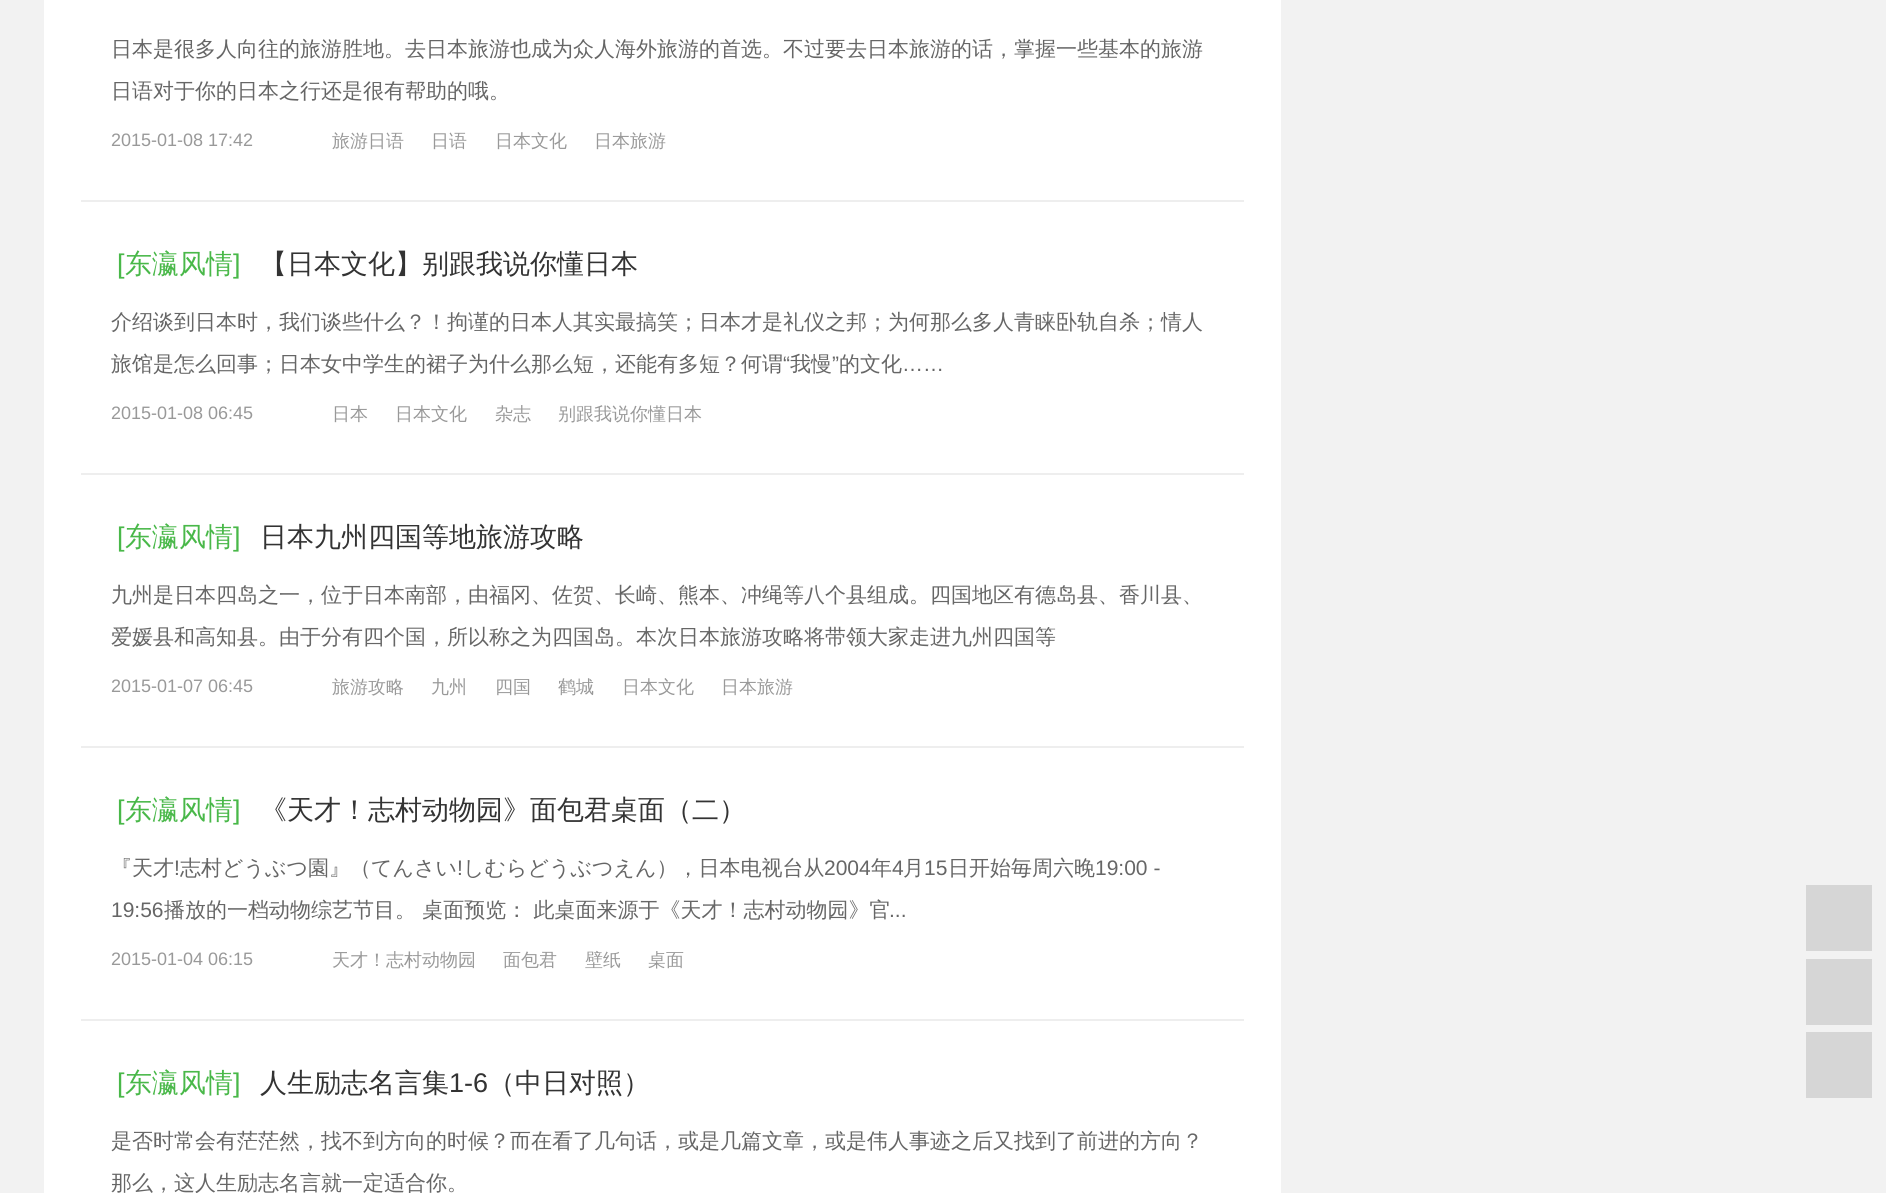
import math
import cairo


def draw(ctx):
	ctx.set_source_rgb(0.949, 0.949, 0.949)
	ctx.paint()
	ctx.set_source_rgb(1, 1, 1)
	ctx.rectangle(44, 0, 1237, 1193)
	ctx.fill()
	ctx.set_source_rgb(0.933, 0.933, 0.933)
	ctx.rectangle(81, 200, 1163, 2)
	ctx.fill()
	ctx.select_font_face('WenQuanYi Zen Hei Medium')
	ctx.set_font_size(21)
	ctx.set_source_rgb(0.4, 0.4, 0.4)
	ctx.move_to(111, 56)
	ctx.show_text('日本是很多人向往的旅游胜地。去日本旅游也成为众人海外旅游的首选。不过要去日本旅游的话，掌握一些基本的旅游')
	ctx.move_to(111, 98)
	ctx.show_text('日语对于你的日本之行还是很有帮助的哦。')
	ctx.select_font_face('Liberation Sans')
	ctx.set_font_size(18)
	ctx.set_source_rgb(0.6, 0.6, 0.6)
	ctx.move_to(111, 146)
	ctx.show_text('2015-01-08 17:42')
	ctx.select_font_face('WenQuanYi Zen Hei Medium')
	for x, y, s in [
		(332, 147, '旅游日语'),
		(431, 147, '日语'),
		(495, 147, '日本文化'),
		(594, 147, '日本旅游'),
	]:
		ctx.move_to(x, y)
		ctx.show_text(s)
	ctx.set_source_rgb(0.933, 0.933, 0.933)
	ctx.rectangle(81, 473, 1163, 2)
	ctx.fill()
	ctx.select_font_face('Liberation Sans')
	ctx.set_font_size(27)
	ctx.set_source_rgb(0.286, 0.722, 0.286)
	ctx.move_to(117, 273)
	ctx.show_text('[')
	ctx.select_font_face('WenQuanYi Zen Hei Medium')
	ctx.move_to(125, 273)
	ctx.show_text('东瀛风情')
	ctx.select_font_face('Liberation Sans')
	ctx.move_to(233, 273)
	ctx.show_text(']')
	ctx.select_font_face('WenQuanYi Zen Hei Medium')
	ctx.set_source_rgb(0.2, 0.2, 0.2)
	ctx.move_to(260, 273)
	ctx.show_text('【日本文化】别跟我说你懂日本')
	ctx.set_font_size(21)
	ctx.set_source_rgb(0.4, 0.4, 0.4)
	ctx.move_to(111, 329)
	ctx.show_text('介绍谈到日本时，我们谈些什么？！拘谨的日本人其实最搞笑；日本才是礼仪之邦；为何那么多人青睐卧轨自杀；情人')
	ctx.move_to(111, 371)
	ctx.show_text('旅馆是怎么回事；日本女中学生的裙子为什么那么短，还能有多短？何谓')
	ctx.select_font_face('Liberation Sans')
	ctx.move_to(783, 371)
	ctx.show_text('“')
	ctx.select_font_face('WenQuanYi Zen Hei Medium')
	ctx.move_to(790, 371)
	ctx.show_text('我慢')
	ctx.select_font_face('Liberation Sans')
	ctx.move_to(832, 371)
	ctx.show_text('”')
	ctx.select_font_face('WenQuanYi Zen Hei Medium')
	ctx.move_to(839, 371)
	ctx.show_text('的文化')
	ctx.select_font_face('Liberation Sans')
	ctx.move_to(902, 371)
	ctx.show_text('……')
	ctx.set_font_size(18)
	ctx.set_source_rgb(0.6, 0.6, 0.6)
	ctx.move_to(111, 419)
	ctx.show_text('2015-01-08 06:45')
	ctx.select_font_face('WenQuanYi Zen Hei Medium')
	for x, y, s in [
		(332, 420, '日本'),
		(395, 420, '日本文化'),
		(495, 420, '杂志'),
		(558, 420, '别跟我说你懂日本'),
	]:
		ctx.move_to(x, y)
		ctx.show_text(s)
	ctx.set_source_rgb(0.933, 0.933, 0.933)
	ctx.rectangle(81, 746, 1163, 2)
	ctx.fill()
	ctx.select_font_face('Liberation Sans')
	ctx.set_font_size(27)
	ctx.set_source_rgb(0.286, 0.722, 0.286)
	ctx.move_to(117, 546)
	ctx.show_text('[')
	ctx.select_font_face('WenQuanYi Zen Hei Medium')
	ctx.move_to(125, 546)
	ctx.show_text('东瀛风情')
	ctx.select_font_face('Liberation Sans')
	ctx.move_to(233, 546)
	ctx.show_text(']')
	ctx.select_font_face('WenQuanYi Zen Hei Medium')
	ctx.set_source_rgb(0.2, 0.2, 0.2)
	ctx.move_to(260, 546)
	ctx.show_text('日本九州四国等地旅游攻略')
	ctx.set_font_size(21)
	ctx.set_source_rgb(0.4, 0.4, 0.4)
	ctx.move_to(111, 602)
	ctx.show_text('九州是日本四岛之一，位于日本南部，由福冈、佐贺、长崎、熊本、冲绳等八个县组成。四国地区有德岛县、香川县、')
	ctx.move_to(111, 644)
	ctx.show_text('爱媛县和高知县。由于分有四个国，所以称之为四国岛。本次日本旅游攻略将带领大家走进九州四国等')
	ctx.select_font_face('Liberation Sans')
	ctx.set_font_size(18)
	ctx.set_source_rgb(0.6, 0.6, 0.6)
	ctx.move_to(111, 692)
	ctx.show_text('2015-01-07 06:45')
	ctx.select_font_face('WenQuanYi Zen Hei Medium')
	for x, y, s in [
		(332, 693, '旅游攻略'),
		(431, 693, '九州'),
		(495, 693, '四国'),
		(558, 693, '鹤城'),
		(622, 693, '日本文化'),
		(721, 693, '日本旅游'),
	]:
		ctx.move_to(x, y)
		ctx.show_text(s)
	ctx.set_source_rgb(0.933, 0.933, 0.933)
	ctx.rectangle(81, 1019, 1163, 2)
	ctx.fill()
	ctx.select_font_face('Liberation Sans')
	ctx.set_font_size(27)
	ctx.set_source_rgb(0.286, 0.722, 0.286)
	ctx.move_to(117, 819)
	ctx.show_text('[')
	ctx.select_font_face('WenQuanYi Zen Hei Medium')
	ctx.move_to(125, 819)
	ctx.show_text('东瀛风情')
	ctx.select_font_face('Liberation Sans')
	ctx.move_to(233, 819)
	ctx.show_text(']')
	ctx.select_font_face('WenQuanYi Zen Hei Medium')
	ctx.set_source_rgb(0.2, 0.2, 0.2)
	ctx.move_to(260, 819)
	ctx.show_text('《天才！志村动物园》面包君桌面（二）')
	ctx.set_font_size(21)
	ctx.set_source_rgb(0.4, 0.4, 0.4)
	ctx.move_to(111, 875)
	ctx.show_text('『天才')
	ctx.select_font_face('Liberation Sans')
	ctx.move_to(174, 875)
	ctx.show_text('!')
	ctx.select_font_face('WenQuanYi Zen Hei Medium')
	ctx.move_to(180, 875)
	ctx.show_text('志村どうぶつ園』（てんさい')
	ctx.select_font_face('Liberation Sans')
	ctx.move_to(457, 875)
	ctx.show_text('!')
	ctx.select_font_face('WenQuanYi Zen Hei Medium')
	ctx.move_to(463, 875)
	ctx.show_text('しむらどうぶつえん），日本电视台从')
	ctx.select_font_face('Liberation Sans')
	ctx.move_to(824, 875)
	ctx.show_text('2004')
	ctx.select_font_face('WenQuanYi Zen Hei Medium')
	ctx.move_to(871, 875)
	ctx.show_text('年')
	ctx.select_font_face('Liberation Sans')
	ctx.move_to(892, 875)
	ctx.show_text('4')
	ctx.select_font_face('WenQuanYi Zen Hei Medium')
	ctx.move_to(903, 875)
	ctx.show_text('月')
	ctx.select_font_face('Liberation Sans')
	ctx.move_to(924, 875)
	ctx.show_text('15')
	ctx.select_font_face('WenQuanYi Zen Hei Medium')
	ctx.move_to(948, 875)
	ctx.show_text('日开始毎周六晚')
	ctx.select_font_face('Liberation Sans')
	ctx.move_to(1095, 875)
	ctx.show_text('19:00 -')
	ctx.move_to(111, 917)
	ctx.show_text('19:56')
	ctx.select_font_face('WenQuanYi Zen Hei Medium')
	ctx.move_to(164, 917)
	ctx.show_text('播放的一档动物综艺节目。 桌面预览： 此桌面来源于《天才！志村动物园》官')
	ctx.select_font_face('Liberation Sans')
	ctx.move_to(889, 917)
	ctx.show_text('...')
	ctx.set_font_size(18)
	ctx.set_source_rgb(0.6, 0.6, 0.6)
	ctx.move_to(111, 965)
	ctx.show_text('2015-01-04 06:15')
	ctx.select_font_face('WenQuanYi Zen Hei Medium')
	for x, y, s in [
		(332, 966, '天才！志村动物园'),
		(503, 966, '面包君'),
		(585, 966, '壁纸'),
		(648, 966, '桌面'),
	]:
		ctx.move_to(x, y)
		ctx.show_text(s)
	ctx.select_font_face('Liberation Sans')
	ctx.set_font_size(27)
	ctx.set_source_rgb(0.286, 0.722, 0.286)
	ctx.move_to(117, 1092)
	ctx.show_text('[')
	ctx.select_font_face('WenQuanYi Zen Hei Medium')
	ctx.move_to(125, 1092)
	ctx.show_text('东瀛风情')
	ctx.select_font_face('Liberation Sans')
	ctx.move_to(233, 1092)
	ctx.show_text(']')
	ctx.select_font_face('WenQuanYi Zen Hei Medium')
	ctx.set_source_rgb(0.2, 0.2, 0.2)
	ctx.move_to(260, 1092)
	ctx.show_text('人生励志名言集')
	ctx.select_font_face('Liberation Sans')
	ctx.move_to(449, 1092)
	ctx.show_text('1-6')
	ctx.select_font_face('WenQuanYi Zen Hei Medium')
	ctx.move_to(488, 1092)
	ctx.show_text('（中日对照）')
	ctx.set_font_size(21)
	ctx.set_source_rgb(0.4, 0.4, 0.4)
	ctx.move_to(111, 1148)
	ctx.show_text('是否时常会有茫茫然，找不到方向的时候？而在看了几句话，或是几篇文章，或是伟人事迹之后又找到了前进的方向？')
	ctx.move_to(111, 1190)
	ctx.show_text('那么，这人生励志名言就一定适合你。')
	ctx.set_source_rgb(0.839, 0.839, 0.839)
	ctx.rectangle(1806, 885, 66, 66)
	ctx.rectangle(1806, 959, 66, 66)
	ctx.rectangle(1806, 1032, 66, 66)
	ctx.fill()


surface = cairo.ImageSurface(cairo.FORMAT_RGB24, 1886, 1193)
ctx = cairo.Context(surface)
options = cairo.FontOptions()
options.set_hint_metrics(cairo.HINT_METRICS_OFF)
options.set_hint_style(cairo.HINT_STYLE_NONE)
ctx.set_font_options(options)
ctx.set_miter_limit(4)
draw(ctx)
surface.write_to_png('image.png')
